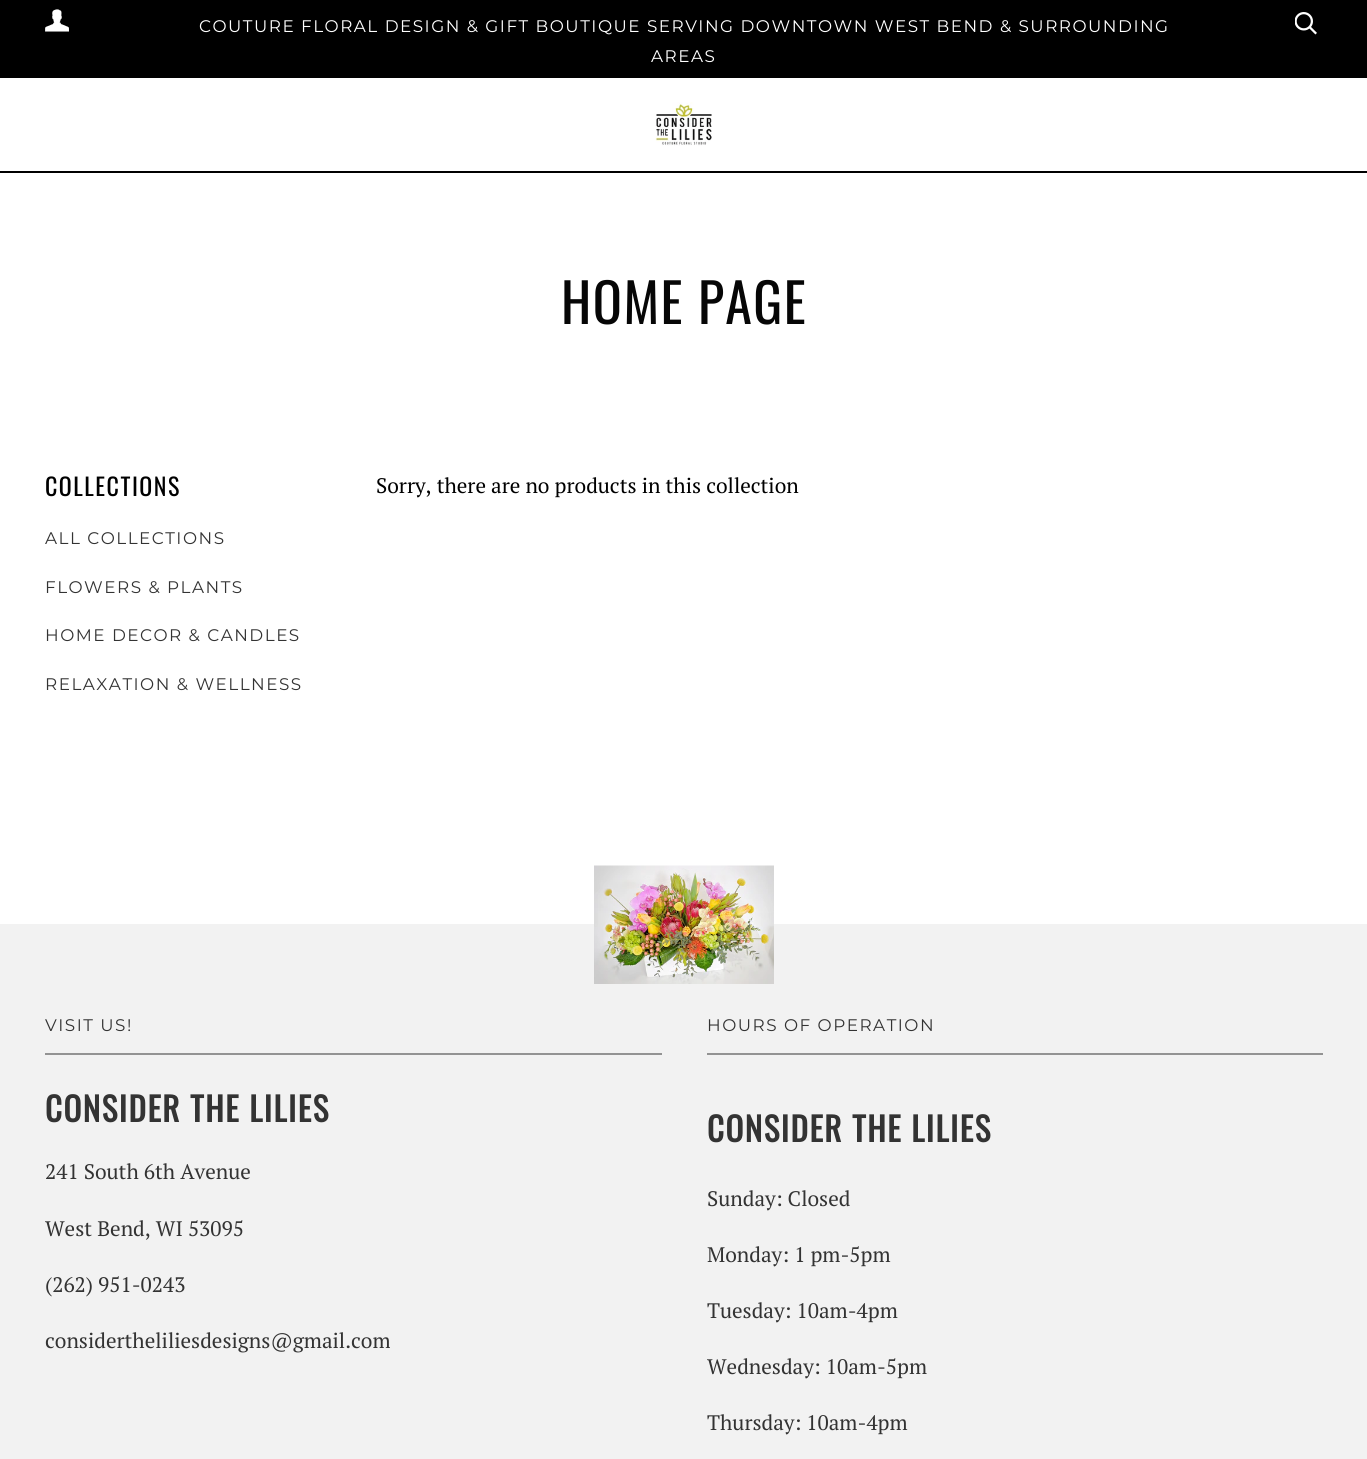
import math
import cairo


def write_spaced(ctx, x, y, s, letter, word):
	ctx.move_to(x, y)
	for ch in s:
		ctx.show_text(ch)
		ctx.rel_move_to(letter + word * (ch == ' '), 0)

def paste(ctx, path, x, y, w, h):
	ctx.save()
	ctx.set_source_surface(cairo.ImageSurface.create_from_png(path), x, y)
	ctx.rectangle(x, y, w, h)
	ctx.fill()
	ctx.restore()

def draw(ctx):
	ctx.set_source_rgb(1, 1, 1)
	ctx.paint()
	ctx.set_source_rgb(0, 0, 0)
	ctx.rectangle(0, 0, 1367, 78)
	ctx.fill()
	paste(ctx, 'media/1.png', 45, 9, 24, 23)
	ctx.select_font_face('Montserrat Thin')
	ctx.set_font_size(16.8)
	ctx.set_source_rgb(1, 1, 1)
	write_spaced(ctx, 199, 32, 'COUTURE FLORAL DESIGN & GIFT BOUTIQUE SERVING DOWNTOWN WEST BEND & SURROUNDING', 1.5, 0)
	write_spaced(ctx, 651, 62, 'AREAS', 1.5, 0)
	paste(ctx, 'media/2.png', 1295, 12, 22, 23)
	ctx.set_source_rgb(0, 0, 0)
	ctx.rectangle(0, 171, 1367, 2)
	ctx.fill()
	paste(ctx, 'media/3.png', 655, 102, 57, 44)
	ctx.select_font_face('Oswald')
	ctx.set_font_size(54)
	ctx.set_source_rgb(0.024, 0.024, 0.024)
	write_spaced(ctx, 561, 324, 'HOME PAGE', 1.5, 0)
	ctx.set_font_size(24)
	ctx.set_source_rgb(0, 0, 0)
	write_spaced(ctx, 45, 496, 'COLLECTIONS', 1.5, 0)
	ctx.select_font_face('Montserrat Thin')
	ctx.set_font_size(16.8)
	ctx.set_source_rgb(0.2, 0.2, 0.2)
	for x, y, s in [
		(45, 544, 'ALL COLLECTIONS'),
		(45, 593, 'FLOWERS & PLANTS'),
		(45, 641, 'HOME DECOR & CANDLES'),
		(45, 690, 'RELAXATION & WELLNESS'),
	]:
		write_spaced(ctx, x, y, s, 1.5, 0)
	ctx.select_font_face('PT Serif')
	ctx.set_font_size(21)
	ctx.set_source_rgb(0, 0, 0)
	ctx.move_to(376, 493)
	ctx.show_text('Sorry, there are no products in this collection')
	ctx.set_source_rgb(0.949, 0.949, 0.949)
	ctx.rectangle(0, 924, 1367, 535)
	ctx.fill()
	paste(ctx, 'media/4.png', 594, 865, 180, 119)
	ctx.select_font_face('Montserrat Thin')
	ctx.set_font_size(16.8)
	ctx.set_source_rgb(0.2, 0.2, 0.2)
	write_spaced(ctx, 45, 1031, 'VISIT US!', 1.5, 0)
	ctx.set_source_rgb(0.576, 0.576, 0.576)
	ctx.rectangle(45, 1053, 617, 2)
	ctx.fill()
	ctx.select_font_face('Oswald', cairo.FONT_SLANT_NORMAL, cairo.FONT_WEIGHT_BOLD)
	ctx.set_font_size(33)
	ctx.set_source_rgb(0.2, 0.2, 0.2)
	write_spaced(ctx, 45, 1122, 'CONSIDER THE LILIES', 1.5, 0)
	ctx.select_font_face('PT Serif')
	ctx.set_font_size(21)
	for x, y, s in [
		(45, 1179, '241 South 6th Avenue'),
		(45, 1236, 'West Bend, WI 53095'),
		(45, 1292, '(262) 951-0243'),
		(45, 1348, 'considertheliliesdesigns@gmail.com'),
	]:
		ctx.move_to(x, y)
		ctx.show_text(s)
	ctx.select_font_face('Montserrat Thin')
	ctx.set_font_size(16.8)
	write_spaced(ctx, 707, 1031, 'HOURS OF OPERATION', 1.5, 0)
	ctx.set_source_rgb(0.576, 0.576, 0.576)
	ctx.rectangle(707, 1053, 616, 2)
	ctx.fill()
	ctx.select_font_face('Oswald', cairo.FONT_SLANT_NORMAL, cairo.FONT_WEIGHT_BOLD)
	ctx.set_font_size(33)
	ctx.set_source_rgb(0.2, 0.2, 0.2)
	write_spaced(ctx, 707, 1142, 'CONSIDER THE LILIES', 1.5, 0)
	ctx.select_font_face('PT Serif')
	ctx.set_font_size(21)
	for x, y, s in [
		(707, 1206, 'Sunday: Closed'),
		(707, 1262, 'Monday: 1 pm-5pm'),
		(707, 1318, 'Tuesday: 10am-4pm'),
		(707, 1374, 'Wednesday: 10am-5pm'),
		(707, 1430, 'Thursday: 10am-4pm'),
	]:
		ctx.move_to(x, y)
		ctx.show_text(s)


surface = cairo.ImageSurface(cairo.FORMAT_RGB24, 1367, 1459)
ctx = cairo.Context(surface)
options = cairo.FontOptions()
options.set_hint_metrics(cairo.HINT_METRICS_OFF)
options.set_hint_style(cairo.HINT_STYLE_NONE)
ctx.set_font_options(options)
ctx.set_miter_limit(4)
draw(ctx)
surface.write_to_png('image.png')
